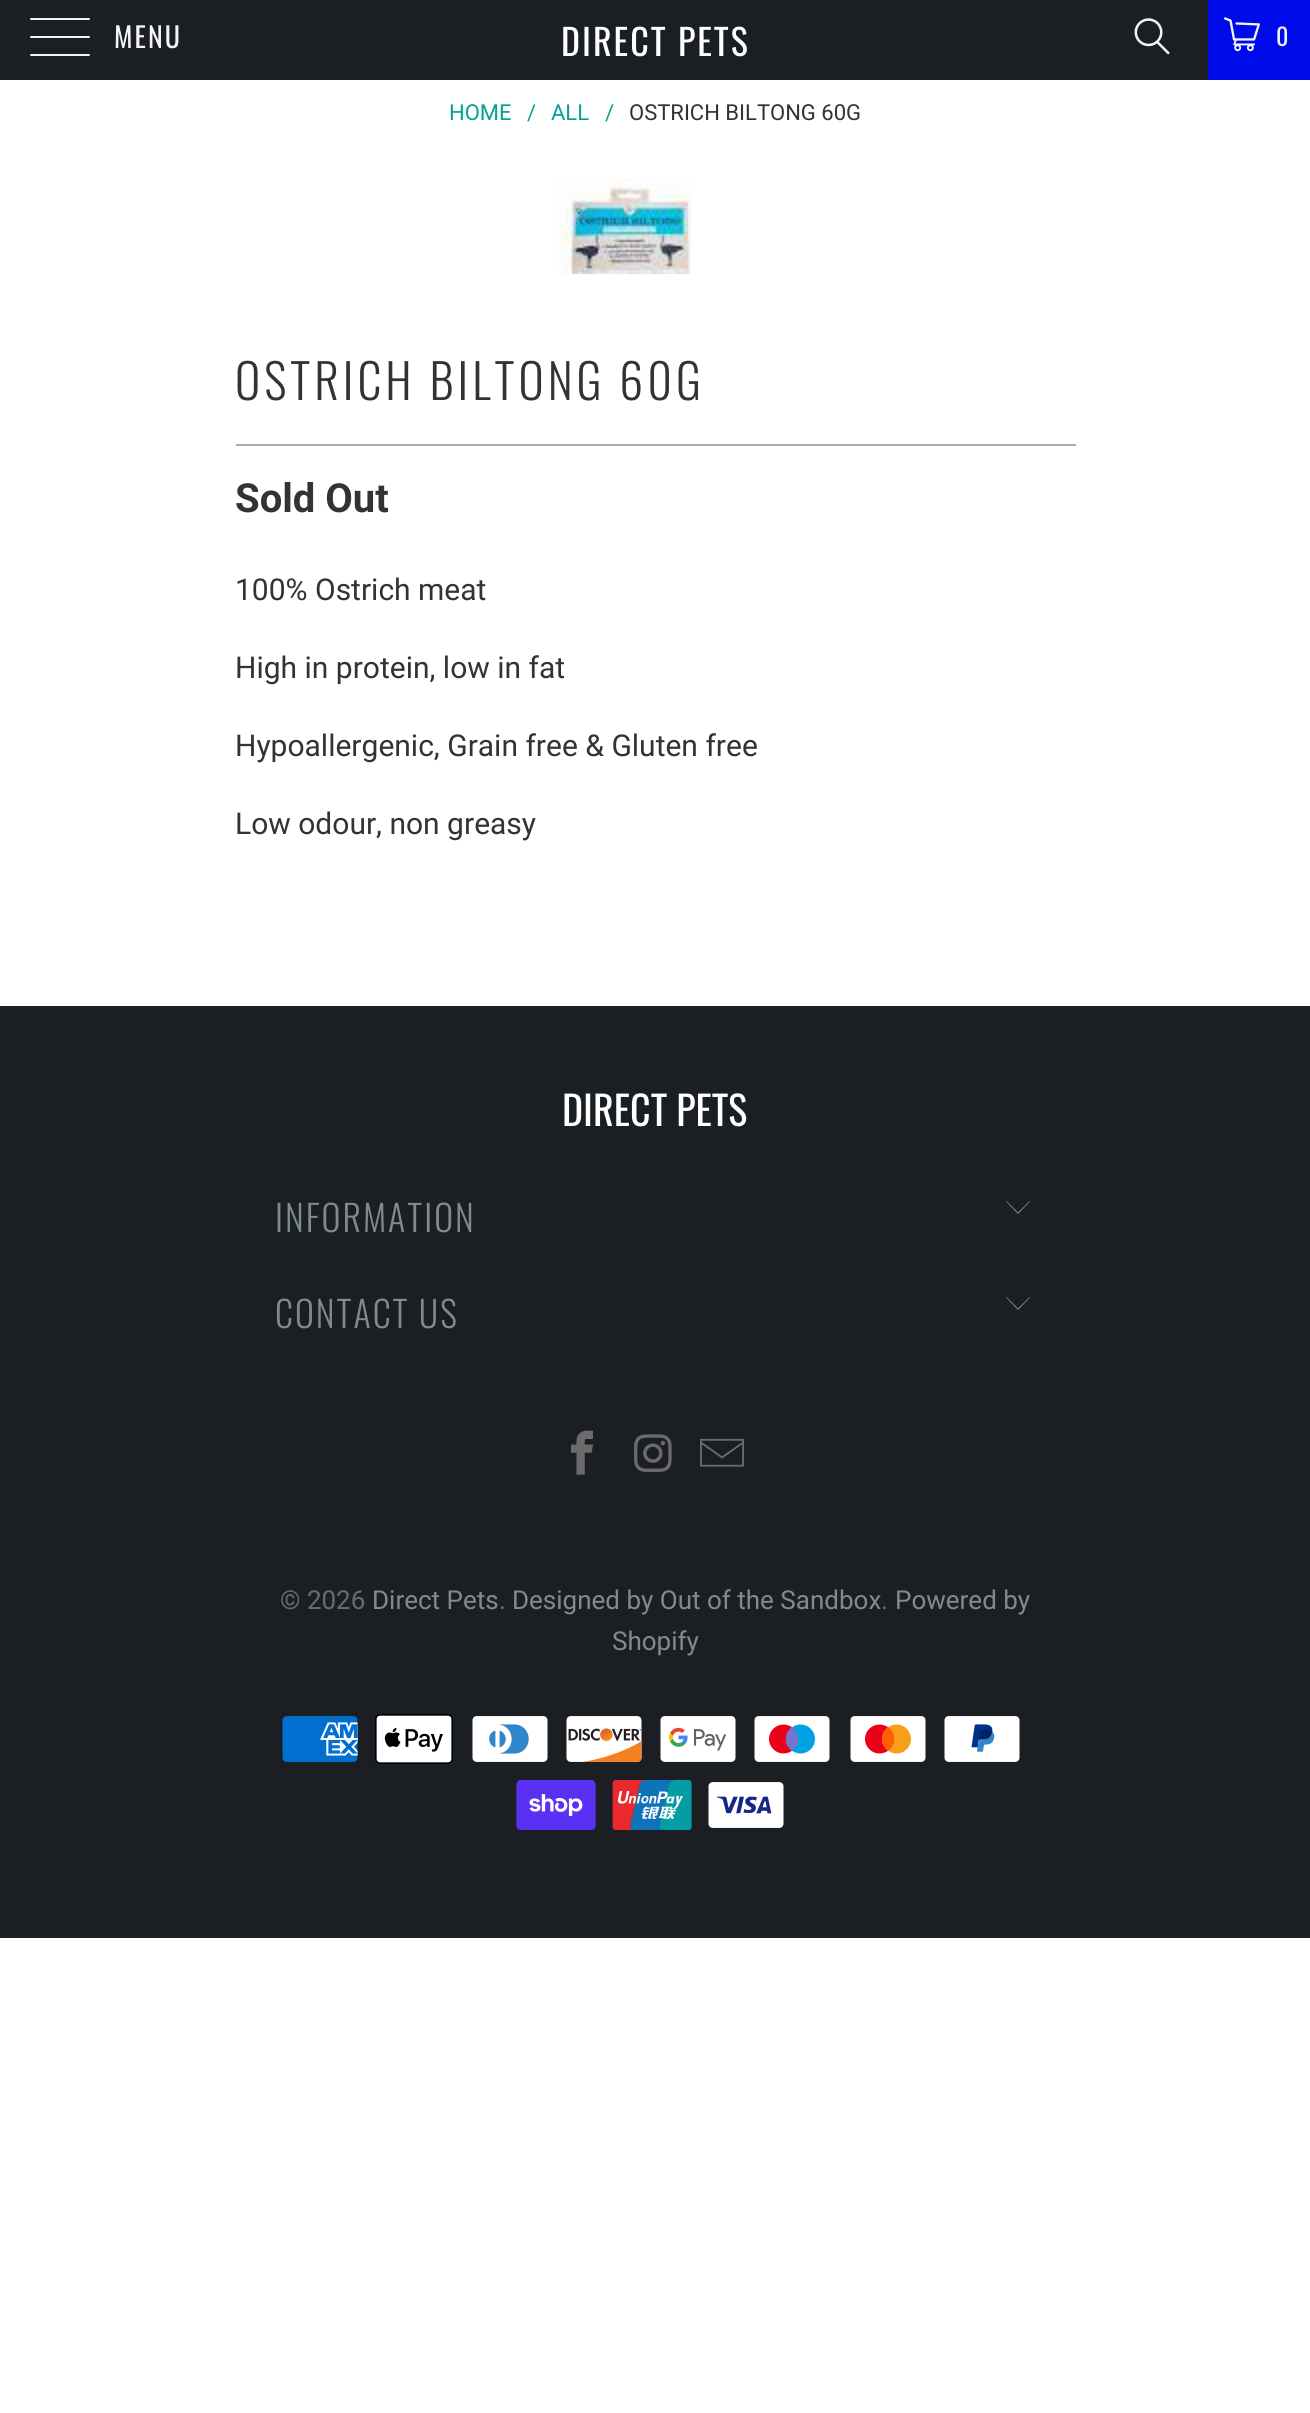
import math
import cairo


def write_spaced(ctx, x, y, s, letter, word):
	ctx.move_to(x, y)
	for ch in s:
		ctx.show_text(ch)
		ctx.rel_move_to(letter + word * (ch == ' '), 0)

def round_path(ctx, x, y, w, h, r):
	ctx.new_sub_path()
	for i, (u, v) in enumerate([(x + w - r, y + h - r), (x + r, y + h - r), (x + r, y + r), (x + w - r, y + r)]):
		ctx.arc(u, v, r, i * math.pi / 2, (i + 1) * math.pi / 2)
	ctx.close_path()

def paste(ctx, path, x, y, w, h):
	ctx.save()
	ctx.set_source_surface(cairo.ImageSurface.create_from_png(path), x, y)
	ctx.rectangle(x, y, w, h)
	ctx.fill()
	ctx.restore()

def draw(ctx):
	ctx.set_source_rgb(1, 1, 1)
	ctx.paint()
	ctx.set_source_rgb(0.106, 0.122, 0.137)
	ctx.rectangle(0, 0, 1208, 80)
	ctx.fill()
	ctx.set_source_rgb(0.957, 0.957, 0.957)
	round_path(ctx, 30, 18, 60, 2, 1)
	ctx.fill()
	round_path(ctx, 30, 36, 60, 2, 1)
	ctx.fill()
	round_path(ctx, 30, 54, 60, 2, 1)
	ctx.fill()
	ctx.select_font_face('Oswald')
	ctx.set_font_size(28)
	write_spaced(ctx, 114, 48, 'MENU', 2, 0)
	ctx.set_font_size(36)
	ctx.set_source_rgb(1, 1, 1)
	write_spaced(ctx, 561, 56, 'DIRECT PETS', 2, 0)
	paste(ctx, 'media/1.png', 1134, 18, 36, 37)
	ctx.set_source_rgb(0, 0.043, 0.918)
	ctx.rectangle(1208, 0, 102, 80)
	ctx.fill()
	paste(ctx, 'media/2.png', 1224, 17, 36, 35)
	ctx.set_font_size(24)
	ctx.set_source_rgb(0.957, 0.957, 0.957)
	write_spaced(ctx, 1276, 46, '0', 2, 0)
	ctx.select_font_face('Roboto')
	ctx.set_font_size(22)
	ctx.set_source_rgb(0.012, 0.631, 0.588)
	for x, y, s in [
		(449, 120, 'HOME'),
		(527, 120, '/'),
		(551, 120, 'ALL'),
		(605, 120, '/'),
	]:
		ctx.move_to(x, y)
		ctx.show_text(s)
	ctx.set_source_rgb(0.2, 0.2, 0.2)
	ctx.move_to(629, 120)
	ctx.show_text('OSTRICH BILTONG 60G')
	paste(ctx, 'media/3.png', 558, 178, 134, 96)
	ctx.select_font_face('Oswald Light')
	ctx.set_font_size(48)
	write_spaced(ctx, 235, 400, 'OSTRICH BILTONG 60G', 4, 0)
	ctx.set_source_rgb(0.667, 0.667, 0.667)
	ctx.rectangle(236, 444, 840, 2)
	ctx.fill()
	ctx.select_font_face('Roboto', cairo.FONT_SLANT_NORMAL, cairo.FONT_WEIGHT_BOLD)
	ctx.set_font_size(40)
	ctx.set_source_rgb(0.2, 0.2, 0.2)
	ctx.move_to(235, 512)
	ctx.show_text('Sold Out')
	ctx.select_font_face('Roboto')
	ctx.set_font_size(30)
	for x, y, s in [
		(235, 600, '100% Ostrich meat'),
		(235, 678, 'High in protein, low in fat'),
		(235, 756, 'Hypoallergenic, Grain free & Gluten free'),
		(235, 834, 'Low odour, non greasy'),
	]:
		ctx.move_to(x, y)
		ctx.show_text(s)
	ctx.set_source_rgb(0.106, 0.122, 0.137)
	ctx.rectangle(0, 1006, 1310, 932)
	ctx.fill()
	ctx.select_font_face('Oswald')
	ctx.set_font_size(40)
	ctx.set_source_rgb(1, 1, 1)
	ctx.move_to(562, 1126)
	ctx.show_text('DIRECT PETS')
	ctx.select_font_face('Oswald Light')
	ctx.set_font_size(36)
	ctx.set_source_rgb(0.498, 0.549, 0.553)
	write_spaced(ctx, 275, 1232, 'INFORMATION', 2, 0)
	ctx.new_path()
	ctx.move_to(1018, 1214)
	ctx.line_to(1006, 1201.5)
	ctx.line_to(1006.5, 1201)
	ctx.line_to(1018, 1212.5)
	ctx.line_to(1029.5, 1201)
	ctx.line_to(1030, 1201.5)
	ctx.close_path()
	ctx.fill()
	write_spaced(ctx, 275, 1328, 'CONTACT US', 2, 0)
	ctx.new_path()
	ctx.move_to(1018, 1310)
	ctx.line_to(1006, 1297.5)
	ctx.line_to(1006.5, 1297)
	ctx.line_to(1018, 1308.5)
	ctx.line_to(1029.5, 1297)
	ctx.line_to(1030, 1297.5)
	ctx.close_path()
	ctx.fill()
	paste(ctx, 'media/4.png', 571, 1430, 22, 45)
	paste(ctx, 'media/5.png', 634, 1434, 38, 38)
	paste(ctx, 'media/6.png', 700, 1438, 44, 29)
	ctx.select_font_face('Roboto')
	ctx.set_font_size(26)
	ctx.set_source_rgb(0.42, 0.42, 0.42)
	ctx.move_to(280, 1609)
	ctx.show_text('© 2026')
	ctx.set_source_rgb(0.498, 0.549, 0.553)
	ctx.move_to(372, 1609)
	ctx.show_text('Direct Pets')
	ctx.set_source_rgb(0.42, 0.42, 0.42)
	ctx.move_to(499, 1609)
	ctx.show_text('.')
	ctx.set_source_rgb(0.498, 0.549, 0.553)
	ctx.move_to(512, 1609)
	ctx.show_text('Designed by Out of the Sandbox')
	ctx.set_source_rgb(0.42, 0.42, 0.42)
	ctx.move_to(881, 1609)
	ctx.show_text('.')
	ctx.set_source_rgb(0.498, 0.549, 0.553)
	ctx.move_to(895, 1609)
	ctx.show_text('Powered by')
	ctx.move_to(612, 1650)
	ctx.show_text('Shopify')
	paste(ctx, 'media/7.png', 282, 1716, 76, 46)
	paste(ctx, 'media/8.png', 375, 1714, 78, 50)
	paste(ctx, 'media/9.png', 472, 1716, 76, 46)
	paste(ctx, 'media/10.png', 566, 1716, 76, 46)
	paste(ctx, 'media/11.png', 660, 1716, 76, 46)
	paste(ctx, 'media/12.png', 754, 1716, 76, 46)
	paste(ctx, 'media/13.png', 850, 1716, 76, 46)
	paste(ctx, 'media/14.png', 944, 1716, 76, 46)
	paste(ctx, 'media/15.png', 516, 1780, 80, 50)
	paste(ctx, 'media/16.png', 612, 1780, 80, 50)
	paste(ctx, 'media/17.png', 708, 1782, 76, 46)


surface = cairo.ImageSurface(cairo.FORMAT_RGB24, 1310, 2413)
ctx = cairo.Context(surface)
options = cairo.FontOptions()
options.set_hint_metrics(cairo.HINT_METRICS_OFF)
options.set_hint_style(cairo.HINT_STYLE_NONE)
ctx.set_font_options(options)
ctx.set_miter_limit(4)
draw(ctx)
surface.write_to_png('image.png')
